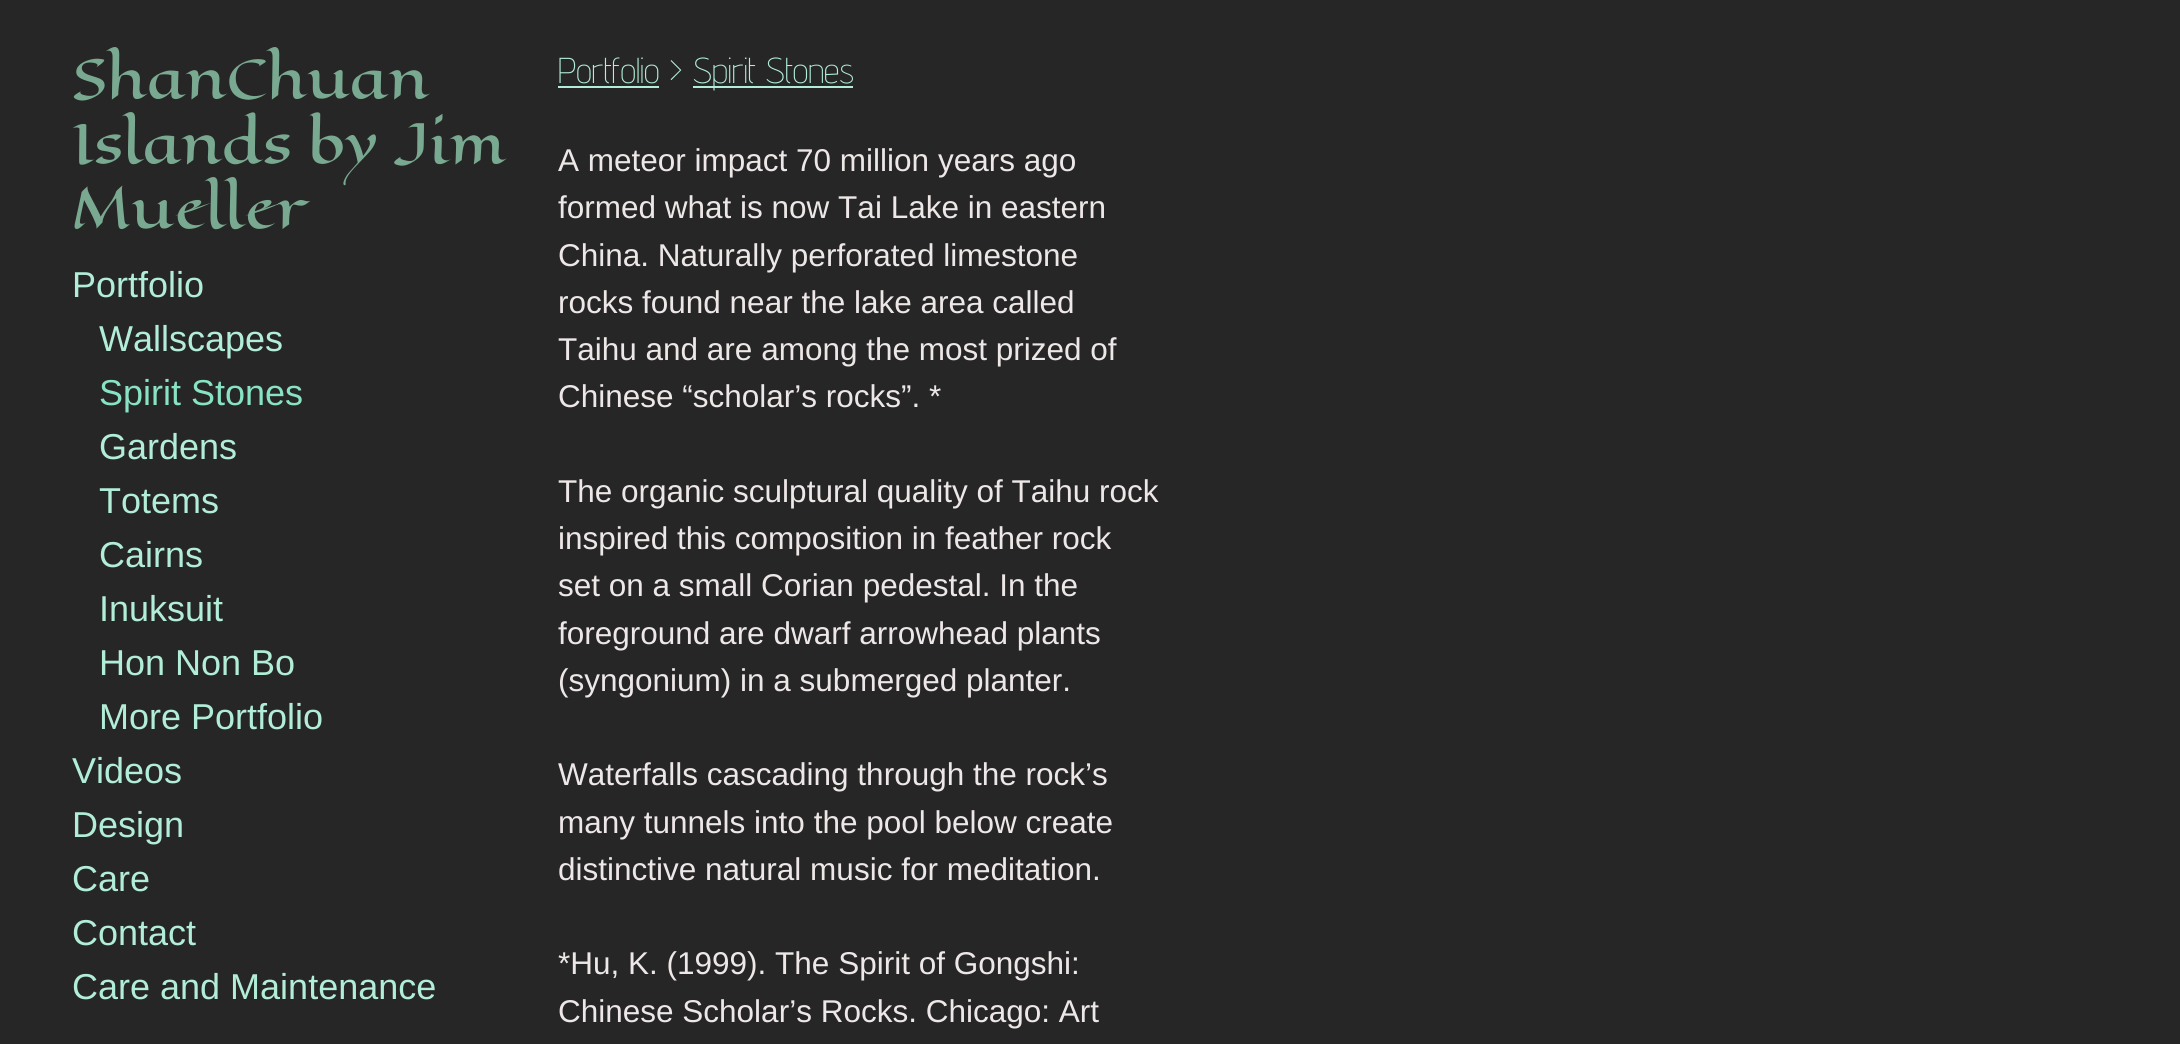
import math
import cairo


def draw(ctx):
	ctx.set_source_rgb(0.149, 0.149, 0.149)
	ctx.paint()
	ctx.select_font_face('Eagle Lake')
	ctx.set_font_size(54)
	ctx.set_source_rgb(0.475, 0.663, 0.569)
	for x, y, s in [
		(72, 98, 'ShanChuan'),
		(72, 163, 'Islands by Jim'),
		(72, 228, 'Mueller'),
	]:
		ctx.move_to(x, y)
		ctx.show_text(s)
	ctx.select_font_face('Liberation Sans')
	ctx.set_font_size(36)
	ctx.set_source_rgb(0.694, 0.929, 0.843)
	ctx.move_to(72, 297)
	ctx.show_text('Portfolio')
	ctx.move_to(99, 351)
	ctx.show_text('Wallscapes')
	ctx.set_source_rgb(0.533, 0.89, 0.761)
	ctx.move_to(99, 405)
	ctx.show_text('Spirit Stones')
	ctx.set_source_rgb(0.694, 0.929, 0.843)
	for x, y, s in [
		(99, 459, 'Gardens'),
		(99, 513, 'Totems'),
		(99, 567, 'Cairns'),
		(99, 621, 'Inuksuit'),
		(99, 675, 'Hon Non Bo'),
		(99, 729, 'More Portfolio'),
		(72, 783, 'Videos'),
		(72, 837, 'Design'),
		(72, 891, 'Care'),
		(72, 945, 'Contact'),
		(72, 999, 'Care and Maintenance'),
	]:
		ctx.move_to(x, y)
		ctx.show_text(s)
	ctx.select_font_face('Advent Pro ExtraLight')
	ctx.move_to(558, 83)
	ctx.show_text('Portfolio >')
	ctx.rectangle(558, 86, 101, 2)
	ctx.fill()
	ctx.rectangle(693, 86, 160, 2)
	ctx.fill()
	ctx.move_to(693, 83)
	ctx.show_text('Spirit Stones')
	ctx.select_font_face('Liberation Sans')
	ctx.set_font_size(31.5)
	ctx.set_source_rgb(0.933, 0.906, 0.906)
	for x, y, s in [
		(558, 171, 'A meteor impact 70 million years ago'),
		(558, 218, 'formed what is now Tai Lake in eastern'),
		(558, 266, 'China. Naturally perforated limestone'),
		(558, 313, 'rocks found near the lake area called'),
		(558, 360, 'Taihu and are among the most prized of'),
		(558, 407, 'Chinese “scholar’s rocks”. *'),
		(558, 502, 'The organic sculptural quality of Taihu rock'),
		(558, 549, 'inspired this composition in feather rock'),
		(558, 596, 'set on a small Corian pedestal. In the'),
		(558, 644, 'foreground are dwarf arrowhead plants'),
		(558, 691, '(syngonium) in a submerged planter.'),
		(558, 785, 'Waterfalls cascading through the rock’s'),
		(558, 833, 'many tunnels into the pool below create'),
		(558, 880, 'distinctive natural music for meditation.'),
		(558, 974, '*Hu, K. (1999). The Spirit of Gongshi:'),
		(558, 1022, 'Chinese Scholar’s Rocks. Chicago: Art'),
	]:
		ctx.move_to(x, y)
		ctx.show_text(s)


surface = cairo.ImageSurface(cairo.FORMAT_RGB24, 2180, 1044)
ctx = cairo.Context(surface)
options = cairo.FontOptions()
options.set_hint_metrics(cairo.HINT_METRICS_OFF)
options.set_hint_style(cairo.HINT_STYLE_NONE)
ctx.set_font_options(options)
ctx.set_miter_limit(4)
draw(ctx)
surface.write_to_png('image.png')
